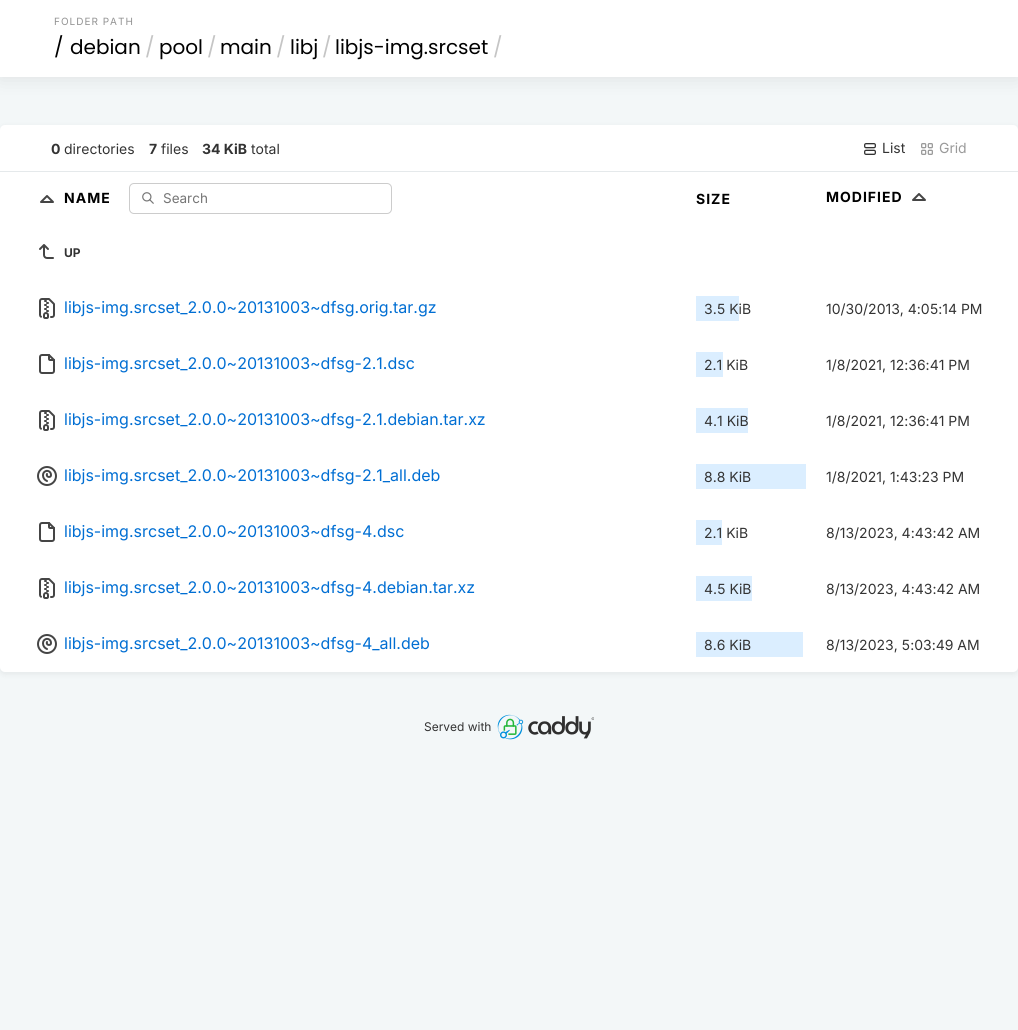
import math
import cairo


def write_spaced(ctx, x, y, s, letter, word):
	ctx.move_to(x, y)
	for ch in s:
		ctx.show_text(ch)
		ctx.rel_move_to(letter + word * (ch == ' '), 0)

def round_path(ctx, x, y, w, h, r):
	ctx.new_sub_path()
	for i, (u, v) in enumerate([(x + w - r, y + h - r), (x + r, y + h - r), (x + r, y + r), (x + w - r, y + r)]):
		ctx.arc(u, v, r, i * math.pi / 2, (i + 1) * math.pi / 2)
	ctx.close_path()

def blur_box(ctx, x, y, w, h, r, blur, alpha):
	ctx.push_group_with_content(cairo.CONTENT_ALPHA)
	ctx.set_operator(cairo.OPERATOR_SOURCE)
	for i in range(15, -16, -2):
		e = blur * i / 6
		if min(w, h) + 2 * e > 0:
			ctx.set_source_rgba(0, 0, 0, alpha * math.erfc((i - 1) / 8.5) / 2)
			round_path(ctx, x - e, y - e, w + 2 * e, h + 2 * e, max(0, min(r + e + blur * .6, min(w, h) / 2 + e)))
			ctx.fill()
	ctx.mask(ctx.pop_group())

def paste(ctx, path, x, y, w, h):
	ctx.save()
	ctx.set_source_surface(cairo.ImageSurface.create_from_png(path), x, y)
	ctx.rectangle(x, y, w, h)
	ctx.fill()
	ctx.restore()

def draw(ctx):
	ctx.set_source_rgb(0.953, 0.965, 0.969)
	ctx.paint()
	ctx.set_source_rgb(0, 0, 0)
	blur_box(ctx, 0, 0, 1018, 77, 0, 10, 0.1)
	ctx.set_source_rgb(1, 1, 1)
	ctx.rectangle(0, 0, 1018, 77)
	ctx.fill()
	ctx.select_font_face('Inter')
	ctx.set_font_size(10)
	ctx.set_source_rgb(0.576, 0.576, 0.576)
	write_spaced(ctx, 54, 25, 'FOLDER PATH', 1, 0)
	ctx.select_font_face('Poppins')
	ctx.set_font_size(20)
	ctx.set_source_rgb(0, 0, 0)
	ctx.move_to(54, 54)
	ctx.show_text('/')
	ctx.move_to(70, 54)
	ctx.show_text('debian')
	ctx.set_source_rgb(0.773, 0.773, 0.773)
	ctx.move_to(145, 54)
	ctx.show_text('/')
	ctx.set_source_rgb(0, 0, 0)
	ctx.move_to(159, 54)
	ctx.show_text('pool')
	ctx.set_source_rgb(0.773, 0.773, 0.773)
	ctx.move_to(207, 54)
	ctx.show_text('/')
	ctx.set_source_rgb(0, 0, 0)
	ctx.move_to(220, 54)
	ctx.show_text('main')
	ctx.set_source_rgb(0.773, 0.773, 0.773)
	ctx.move_to(276, 54)
	ctx.show_text('/')
	ctx.set_source_rgb(0, 0, 0)
	ctx.move_to(290, 54)
	ctx.show_text('libj')
	ctx.set_source_rgb(0.773, 0.773, 0.773)
	ctx.move_to(322, 54)
	ctx.show_text('/')
	ctx.set_source_rgb(0, 0, 0)
	ctx.move_to(335, 54)
	ctx.show_text('libjs-img.srcset')
	ctx.set_source_rgb(0.773, 0.773, 0.773)
	ctx.move_to(493, 54)
	ctx.show_text('/')
	ctx.set_source_rgb(0, 0, 0)
	blur_box(ctx, -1, 126, 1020, 549, 6, 2.5, 0.05)
	ctx.set_source_rgb(1, 1, 1)
	round_path(ctx, 0, 125, 1018, 547, 5)
	ctx.fill()
	ctx.set_source_rgb(0.898, 0.914, 0.918)
	ctx.rectangle(0, 171, 1018, 1)
	ctx.fill()
	ctx.select_font_face('Inter', cairo.FONT_SLANT_NORMAL, cairo.FONT_WEIGHT_BOLD)
	ctx.set_font_size(14)
	ctx.set_source_rgb(0.2, 0.2, 0.2)
	ctx.move_to(51, 154)
	ctx.show_text('0')
	ctx.select_font_face('Inter')
	ctx.move_to(64, 154)
	ctx.show_text('directories')
	ctx.select_font_face('Inter', cairo.FONT_SLANT_NORMAL, cairo.FONT_WEIGHT_BOLD)
	ctx.move_to(149, 154)
	ctx.show_text('7')
	ctx.select_font_face('Inter')
	ctx.move_to(161, 154)
	ctx.show_text('files')
	ctx.select_font_face('Inter', cairo.FONT_SLANT_NORMAL, cairo.FONT_WEIGHT_BOLD)
	ctx.move_to(202, 154)
	ctx.show_text('34 KiB')
	ctx.select_font_face('Inter')
	ctx.move_to(251, 154)
	ctx.show_text('total')
	paste(ctx, 'media/1.png', 864, 143, 12, 12)
	ctx.move_to(882, 153)
	ctx.show_text('List')
	paste(ctx, 'media/2.png', 921, 143, 12, 12)
	ctx.set_source_rgb(0.604, 0.604, 0.604)
	ctx.move_to(939, 153)
	ctx.show_text('Grid')
	ctx.new_path()
	ctx.move_to(53, 202)
	ctx.line_to(47, 196)
	ctx.line_to(41, 202)
	ctx.line_to(53, 202)
	ctx.set_source_rgb(0.271, 0.271, 0.271)
	ctx.set_line_cap(cairo.LINE_CAP_ROUND)
	ctx.set_line_join(cairo.LINE_JOIN_ROUND)
	ctx.stroke()
	ctx.select_font_face('Inter', cairo.FONT_SLANT_NORMAL, cairo.FONT_WEIGHT_BOLD)
	ctx.set_source_rgb(0, 0, 0)
	write_spaced(ctx, 64, 203, 'NAME', 1, 0)
	paste(ctx, 'media/3.png', 142, 192, 12, 12)
	round_path(ctx, 129.5, 183.5, 262, 30, 4.5)
	ctx.set_source_rgb(0.8, 0.8, 0.8)
	ctx.set_line_width(1)
	ctx.set_line_cap(cairo.LINE_CAP_BUTT)
	ctx.set_line_join(cairo.LINE_JOIN_MITER)
	ctx.stroke()
	ctx.select_font_face('Inter')
	ctx.set_font_size(13.5)
	ctx.set_source_rgb(0.459, 0.459, 0.459)
	ctx.move_to(163, 203)
	ctx.show_text('Search')
	ctx.select_font_face('Inter', cairo.FONT_SLANT_NORMAL, cairo.FONT_WEIGHT_BOLD)
	ctx.set_font_size(14)
	ctx.set_source_rgb(0, 0, 0)
	write_spaced(ctx, 696, 204, 'SIZE', 1, 0)
	write_spaced(ctx, 826, 202, 'MODIFIED', 1, 0)
	ctx.new_path()
	ctx.move_to(925, 200)
	ctx.line_to(919, 194)
	ctx.line_to(913, 200)
	ctx.line_to(925, 200)
	ctx.set_source_rgb(0.271, 0.271, 0.271)
	ctx.set_line_width(2)
	ctx.set_line_cap(cairo.LINE_CAP_ROUND)
	ctx.set_line_join(cairo.LINE_JOIN_ROUND)
	ctx.stroke()
	paste(ctx, 'media/4.png', 39, 244, 15, 15)
	ctx.set_font_size(12)
	ctx.set_source_rgb(0.2, 0.2, 0.2)
	ctx.move_to(64, 257)
	ctx.show_text('UP')
	paste(ctx, 'media/5.png', 39, 298, 16, 21)
	ctx.select_font_face('Inter')
	ctx.set_font_size(16)
	ctx.set_source_rgb(0, 0.431, 0.827)
	ctx.move_to(64, 313)
	ctx.show_text('libjs-img.srcset_2.0.0~20131003~dfsg.orig.tar.gz')
	ctx.set_source_rgb(0.859, 0.933, 1)
	ctx.rectangle(696, 296, 43, 25)
	ctx.fill()
	ctx.set_font_size(14)
	ctx.set_source_rgb(0.2, 0.2, 0.2)
	ctx.move_to(704, 314)
	ctx.show_text('3.5 KiB')
	ctx.move_to(826, 314)
	ctx.show_text('10/30/2013, 4:05:14 PM')
	paste(ctx, 'media/6.png', 39, 354, 16, 20)
	ctx.set_font_size(16)
	ctx.set_source_rgb(0, 0.431, 0.827)
	ctx.move_to(64, 369)
	ctx.show_text('libjs-img.srcset_2.0.0~20131003~dfsg-2.1.dsc')
	ctx.set_source_rgb(0.859, 0.933, 1)
	ctx.rectangle(696, 352, 27, 25)
	ctx.fill()
	ctx.set_font_size(14)
	ctx.set_source_rgb(0.2, 0.2, 0.2)
	ctx.move_to(704, 370)
	ctx.show_text('2.1 KiB')
	ctx.move_to(826, 370)
	ctx.show_text('1/8/2021, 12:36:41 PM')
	paste(ctx, 'media/5.png', 39, 410, 16, 21)
	ctx.set_font_size(16)
	ctx.set_source_rgb(0, 0.431, 0.827)
	ctx.move_to(64, 425)
	ctx.show_text('libjs-img.srcset_2.0.0~20131003~dfsg-2.1.debian.tar.xz')
	ctx.set_source_rgb(0.859, 0.933, 1)
	ctx.rectangle(696, 408, 52, 25)
	ctx.fill()
	ctx.set_font_size(14)
	ctx.set_source_rgb(0.2, 0.2, 0.2)
	ctx.move_to(704, 426)
	ctx.show_text('4.1 KiB')
	ctx.move_to(826, 426)
	ctx.show_text('1/8/2021, 12:36:41 PM')
	paste(ctx, 'media/7.png', 37, 466, 20, 20)
	ctx.set_font_size(16)
	ctx.set_source_rgb(0, 0.431, 0.827)
	ctx.move_to(64, 481)
	ctx.show_text('libjs-img.srcset_2.0.0~20131003~dfsg-2.1_all.deb')
	ctx.set_source_rgb(0.859, 0.933, 1)
	ctx.rectangle(696, 464, 110, 25)
	ctx.fill()
	ctx.set_font_size(14)
	ctx.set_source_rgb(0.2, 0.2, 0.2)
	ctx.move_to(704, 482)
	ctx.show_text('8.8 KiB')
	ctx.move_to(826, 482)
	ctx.show_text('1/8/2021, 1:43:23 PM')
	paste(ctx, 'media/6.png', 39, 522, 16, 20)
	ctx.set_font_size(16)
	ctx.set_source_rgb(0, 0.431, 0.827)
	ctx.move_to(64, 537)
	ctx.show_text('libjs-img.srcset_2.0.0~20131003~dfsg-4.dsc')
	ctx.set_source_rgb(0.859, 0.933, 1)
	ctx.rectangle(696, 520, 26, 25)
	ctx.fill()
	ctx.set_font_size(14)
	ctx.set_source_rgb(0.2, 0.2, 0.2)
	ctx.move_to(704, 538)
	ctx.show_text('2.1 KiB')
	ctx.move_to(826, 538)
	ctx.show_text('8/13/2023, 4:43:42 AM')
	paste(ctx, 'media/5.png', 39, 578, 16, 21)
	ctx.set_font_size(16)
	ctx.set_source_rgb(0, 0.431, 0.827)
	ctx.move_to(64, 593)
	ctx.show_text('libjs-img.srcset_2.0.0~20131003~dfsg-4.debian.tar.xz')
	ctx.set_source_rgb(0.859, 0.933, 1)
	ctx.rectangle(696, 576, 56, 25)
	ctx.fill()
	ctx.set_font_size(14)
	ctx.set_source_rgb(0.2, 0.2, 0.2)
	ctx.move_to(704, 594)
	ctx.show_text('4.5 KiB')
	ctx.move_to(826, 594)
	ctx.show_text('8/13/2023, 4:43:42 AM')
	paste(ctx, 'media/7.png', 37, 634, 20, 20)
	ctx.set_font_size(16)
	ctx.set_source_rgb(0, 0.431, 0.827)
	ctx.move_to(64, 649)
	ctx.show_text('libjs-img.srcset_2.0.0~20131003~dfsg-4_all.deb')
	ctx.set_source_rgb(0.859, 0.933, 1)
	ctx.rectangle(696, 632, 107, 25)
	ctx.fill()
	ctx.set_font_size(14)
	ctx.set_source_rgb(0.2, 0.2, 0.2)
	ctx.move_to(704, 650)
	ctx.show_text('8.6 KiB')
	ctx.move_to(826, 650)
	ctx.show_text('8/13/2023, 5:03:49 AM')
	ctx.set_font_size(12)
	ctx.move_to(424, 731)
	ctx.show_text('Served with')
	paste(ctx, 'media/8.png', 497, 714, 97, 26)


surface = cairo.ImageSurface(cairo.FORMAT_RGB24, 1018, 1030)
ctx = cairo.Context(surface)
options = cairo.FontOptions()
options.set_hint_metrics(cairo.HINT_METRICS_OFF)
options.set_hint_style(cairo.HINT_STYLE_NONE)
ctx.set_font_options(options)
ctx.set_miter_limit(4)
draw(ctx)
surface.write_to_png('image.png')
